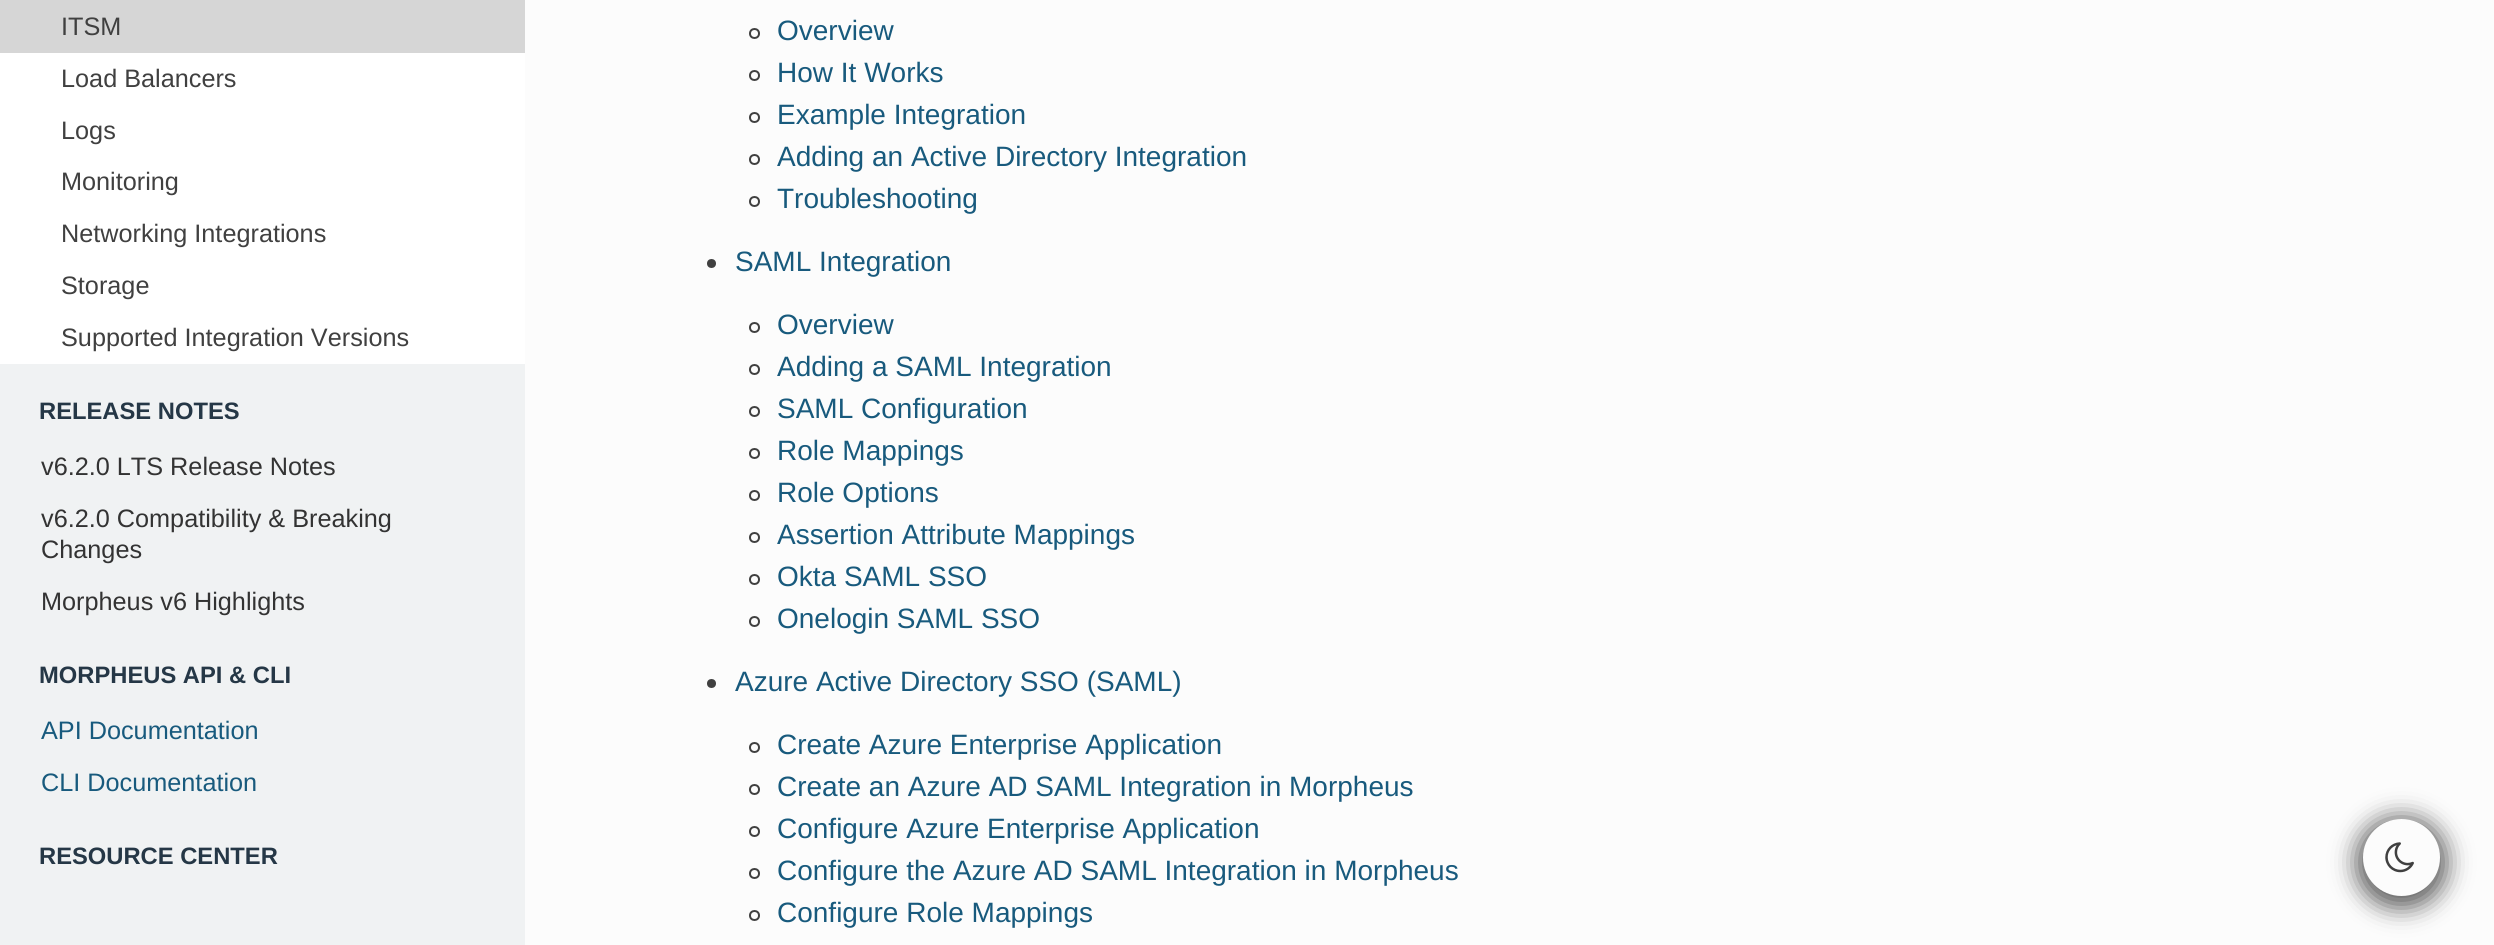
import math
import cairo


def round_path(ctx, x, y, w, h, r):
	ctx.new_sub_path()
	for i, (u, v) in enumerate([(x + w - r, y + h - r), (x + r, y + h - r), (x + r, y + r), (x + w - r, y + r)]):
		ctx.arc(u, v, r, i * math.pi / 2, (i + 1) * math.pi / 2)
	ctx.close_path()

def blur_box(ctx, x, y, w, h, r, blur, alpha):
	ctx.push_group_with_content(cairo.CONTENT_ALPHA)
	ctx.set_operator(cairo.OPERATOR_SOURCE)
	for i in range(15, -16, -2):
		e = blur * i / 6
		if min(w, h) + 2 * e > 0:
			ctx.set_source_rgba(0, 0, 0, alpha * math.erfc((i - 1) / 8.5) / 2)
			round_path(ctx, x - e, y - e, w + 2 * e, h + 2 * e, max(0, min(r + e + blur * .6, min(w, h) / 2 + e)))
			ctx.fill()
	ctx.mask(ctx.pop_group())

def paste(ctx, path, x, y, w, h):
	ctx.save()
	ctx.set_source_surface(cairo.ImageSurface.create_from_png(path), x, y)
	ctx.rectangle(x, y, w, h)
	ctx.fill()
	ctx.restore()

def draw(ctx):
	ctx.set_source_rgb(0.988, 0.988, 0.988)
	ctx.paint()
	ctx.set_source_rgb(0.941, 0.949, 0.953)
	ctx.rectangle(0, 364, 525, 581)
	ctx.fill()
	ctx.set_source_rgb(1, 1, 1)
	ctx.rectangle(0, 53, 525, 311)
	ctx.fill()
	ctx.set_source_rgb(0.839, 0.839, 0.839)
	ctx.rectangle(0, 0, 525, 53)
	ctx.fill()
	ctx.select_font_face('Liberation Sans')
	ctx.set_font_size(25.25)
	ctx.set_source_rgb(0.251, 0.251, 0.251)
	for x, y, s in [
		(61, 35, 'ITSM'),
		(61, 87, 'Load Balancers'),
		(61, 139, 'Logs'),
		(61, 190, 'Monitoring'),
		(61, 242, 'Networking Integrations'),
		(61, 294, 'Storage'),
		(61, 346, 'Supported Integration Versions'),
	]:
		ctx.move_to(x, y)
		ctx.show_text(s)
	ctx.select_font_face('Liberation Sans', cairo.FONT_SLANT_NORMAL, cairo.FONT_WEIGHT_BOLD)
	ctx.set_font_size(23.75)
	ctx.set_source_rgb(0.145, 0.216, 0.275)
	ctx.move_to(39, 419)
	ctx.show_text('RELEASE NOTES')
	ctx.select_font_face('Liberation Sans')
	ctx.set_font_size(25.25)
	ctx.set_source_rgb(0.2, 0.2, 0.2)
	for x, y, s in [
		(41, 475, 'v6.2.0 LTS Release Notes'),
		(41, 527, 'v6.2.0 Compatibility & Breaking'),
		(41, 558, 'Changes'),
		(41, 610, 'Morpheus v6 Highlights'),
	]:
		ctx.move_to(x, y)
		ctx.show_text(s)
	ctx.select_font_face('Liberation Sans', cairo.FONT_SLANT_NORMAL, cairo.FONT_WEIGHT_BOLD)
	ctx.set_font_size(23.75)
	ctx.set_source_rgb(0.145, 0.216, 0.275)
	ctx.move_to(39, 683)
	ctx.show_text('MORPHEUS API & CLI')
	ctx.select_font_face('Liberation Sans')
	ctx.set_font_size(25.25)
	ctx.set_source_rgb(0.094, 0.353, 0.49)
	ctx.move_to(41, 739)
	ctx.show_text('API Documentation')
	ctx.move_to(41, 791)
	ctx.show_text('CLI Documentation')
	ctx.select_font_face('Liberation Sans', cairo.FONT_SLANT_NORMAL, cairo.FONT_WEIGHT_BOLD)
	ctx.set_font_size(23.75)
	ctx.set_source_rgb(0.145, 0.216, 0.275)
	ctx.move_to(39, 864)
	ctx.show_text('RESOURCE CENTER')
	ctx.new_path()
	ctx.arc(754.5, 33.5, 4.5, 0, 2 * math.pi)
	ctx.set_source_rgb(0.251, 0.251, 0.251)
	ctx.stroke()
	ctx.select_font_face('Liberation Sans')
	ctx.set_font_size(28)
	ctx.set_source_rgb(0.094, 0.353, 0.49)
	ctx.move_to(777, 40)
	ctx.show_text('Overview')
	ctx.new_path()
	ctx.arc(754.5, 75.5, 4.5, 0, 2 * math.pi)
	ctx.set_source_rgb(0.251, 0.251, 0.251)
	ctx.stroke()
	ctx.set_source_rgb(0.094, 0.353, 0.49)
	ctx.move_to(777, 82)
	ctx.show_text('How It Works')
	ctx.new_path()
	ctx.arc(754.5, 117.5, 4.5, 0, 2 * math.pi)
	ctx.set_source_rgb(0.251, 0.251, 0.251)
	ctx.stroke()
	ctx.set_source_rgb(0.094, 0.353, 0.49)
	ctx.move_to(777, 124)
	ctx.show_text('Example Integration')
	ctx.new_path()
	ctx.arc(754.5, 159.5, 4.5, 0, 2 * math.pi)
	ctx.set_source_rgb(0.251, 0.251, 0.251)
	ctx.stroke()
	ctx.set_source_rgb(0.094, 0.353, 0.49)
	ctx.move_to(777, 166)
	ctx.show_text('Adding an Active Directory Integration')
	ctx.new_path()
	ctx.arc(754.5, 201.5, 4.5, 0, 2 * math.pi)
	ctx.set_source_rgb(0.251, 0.251, 0.251)
	ctx.stroke()
	ctx.set_source_rgb(0.094, 0.353, 0.49)
	ctx.move_to(777, 208)
	ctx.show_text('Troubleshooting')
	ctx.set_source_rgb(0.251, 0.251, 0.251)
	ctx.new_path()
	ctx.arc(711.5, 263.5, 4.5, 0, 2 * math.pi)
	ctx.fill()
	ctx.set_source_rgb(0.094, 0.353, 0.49)
	ctx.move_to(735, 271)
	ctx.show_text('SAML Integration')
	ctx.new_path()
	ctx.arc(754.5, 327.5, 4.5, 0, 2 * math.pi)
	ctx.set_source_rgb(0.251, 0.251, 0.251)
	ctx.stroke()
	ctx.set_source_rgb(0.094, 0.353, 0.49)
	ctx.move_to(777, 334)
	ctx.show_text('Overview')
	ctx.new_path()
	ctx.arc(754.5, 369.5, 4.5, 0, 2 * math.pi)
	ctx.set_source_rgb(0.251, 0.251, 0.251)
	ctx.stroke()
	ctx.set_source_rgb(0.094, 0.353, 0.49)
	ctx.move_to(777, 376)
	ctx.show_text('Adding a SAML Integration')
	ctx.new_path()
	ctx.arc(754.5, 411.5, 4.5, 0, 2 * math.pi)
	ctx.set_source_rgb(0.251, 0.251, 0.251)
	ctx.stroke()
	ctx.set_source_rgb(0.094, 0.353, 0.49)
	ctx.move_to(777, 418)
	ctx.show_text('SAML Configuration')
	ctx.new_path()
	ctx.arc(754.5, 453.5, 4.5, 0, 2 * math.pi)
	ctx.set_source_rgb(0.251, 0.251, 0.251)
	ctx.stroke()
	ctx.set_source_rgb(0.094, 0.353, 0.49)
	ctx.move_to(777, 460)
	ctx.show_text('Role Mappings')
	ctx.new_path()
	ctx.arc(754.5, 495.5, 4.5, 0, 2 * math.pi)
	ctx.set_source_rgb(0.251, 0.251, 0.251)
	ctx.stroke()
	ctx.set_source_rgb(0.094, 0.353, 0.49)
	ctx.move_to(777, 502)
	ctx.show_text('Role Options')
	ctx.new_path()
	ctx.arc(754.5, 537.5, 4.5, 0, 2 * math.pi)
	ctx.set_source_rgb(0.251, 0.251, 0.251)
	ctx.stroke()
	ctx.set_source_rgb(0.094, 0.353, 0.49)
	ctx.move_to(777, 544)
	ctx.show_text('Assertion Attribute Mappings')
	ctx.new_path()
	ctx.arc(754.5, 579.5, 4.5, 0, 2 * math.pi)
	ctx.set_source_rgb(0.251, 0.251, 0.251)
	ctx.stroke()
	ctx.set_source_rgb(0.094, 0.353, 0.49)
	ctx.move_to(777, 586)
	ctx.show_text('Okta SAML SSO')
	ctx.new_path()
	ctx.arc(754.5, 621.5, 4.5, 0, 2 * math.pi)
	ctx.set_source_rgb(0.251, 0.251, 0.251)
	ctx.stroke()
	ctx.set_source_rgb(0.094, 0.353, 0.49)
	ctx.move_to(777, 628)
	ctx.show_text('Onelogin SAML SSO')
	ctx.set_source_rgb(0.251, 0.251, 0.251)
	ctx.new_path()
	ctx.arc(711.5, 683.5, 4.5, 0, 2 * math.pi)
	ctx.fill()
	ctx.set_source_rgb(0.094, 0.353, 0.49)
	ctx.move_to(735, 691)
	ctx.show_text('Azure Active Directory SSO (SAML)')
	ctx.new_path()
	ctx.arc(754.5, 747.5, 4.5, 0, 2 * math.pi)
	ctx.set_source_rgb(0.251, 0.251, 0.251)
	ctx.stroke()
	ctx.set_source_rgb(0.094, 0.353, 0.49)
	ctx.move_to(777, 754)
	ctx.show_text('Create Azure Enterprise Application')
	ctx.new_path()
	ctx.arc(754.5, 789.5, 4.5, 0, 2 * math.pi)
	ctx.set_source_rgb(0.251, 0.251, 0.251)
	ctx.stroke()
	ctx.set_source_rgb(0.094, 0.353, 0.49)
	ctx.move_to(777, 796)
	ctx.show_text('Create an Azure AD SAML Integration in Morpheus')
	ctx.new_path()
	ctx.arc(754.5, 831.5, 4.5, 0, 2 * math.pi)
	ctx.set_source_rgb(0.251, 0.251, 0.251)
	ctx.stroke()
	ctx.set_source_rgb(0.094, 0.353, 0.49)
	ctx.move_to(777, 838)
	ctx.show_text('Configure Azure Enterprise Application')
	ctx.new_path()
	ctx.arc(754.5, 873.5, 4.5, 0, 2 * math.pi)
	ctx.set_source_rgb(0.251, 0.251, 0.251)
	ctx.stroke()
	ctx.set_source_rgb(0.094, 0.353, 0.49)
	ctx.move_to(777, 880)
	ctx.show_text('Configure the Azure AD SAML Integration in Morpheus')
	ctx.new_path()
	ctx.arc(754.5, 915.5, 4.5, 0, 2 * math.pi)
	ctx.set_source_rgb(0.251, 0.251, 0.251)
	ctx.stroke()
	ctx.set_source_rgb(0.094, 0.353, 0.49)
	ctx.move_to(777, 922)
	ctx.show_text('Configure Role Mappings')
	ctx.set_source_rgb(0, 0, 0)
	blur_box(ctx, 2356, 817, 91, 91, 45.5, 12, 0.62)
	ctx.set_source_rgb(0.988, 0.988, 0.988)
	ctx.arc(2401.5, 857.5, 38.5, 0, 2 * math.pi)
	ctx.fill()
	paste(ctx, 'media/1.png', 2385, 842, 29, 31)


surface = cairo.ImageSurface(cairo.FORMAT_RGB24, 2494, 945)
ctx = cairo.Context(surface)
options = cairo.FontOptions()
options.set_hint_metrics(cairo.HINT_METRICS_OFF)
options.set_hint_style(cairo.HINT_STYLE_NONE)
ctx.set_font_options(options)
ctx.set_miter_limit(4)
draw(ctx)
surface.write_to_png('image.png')
